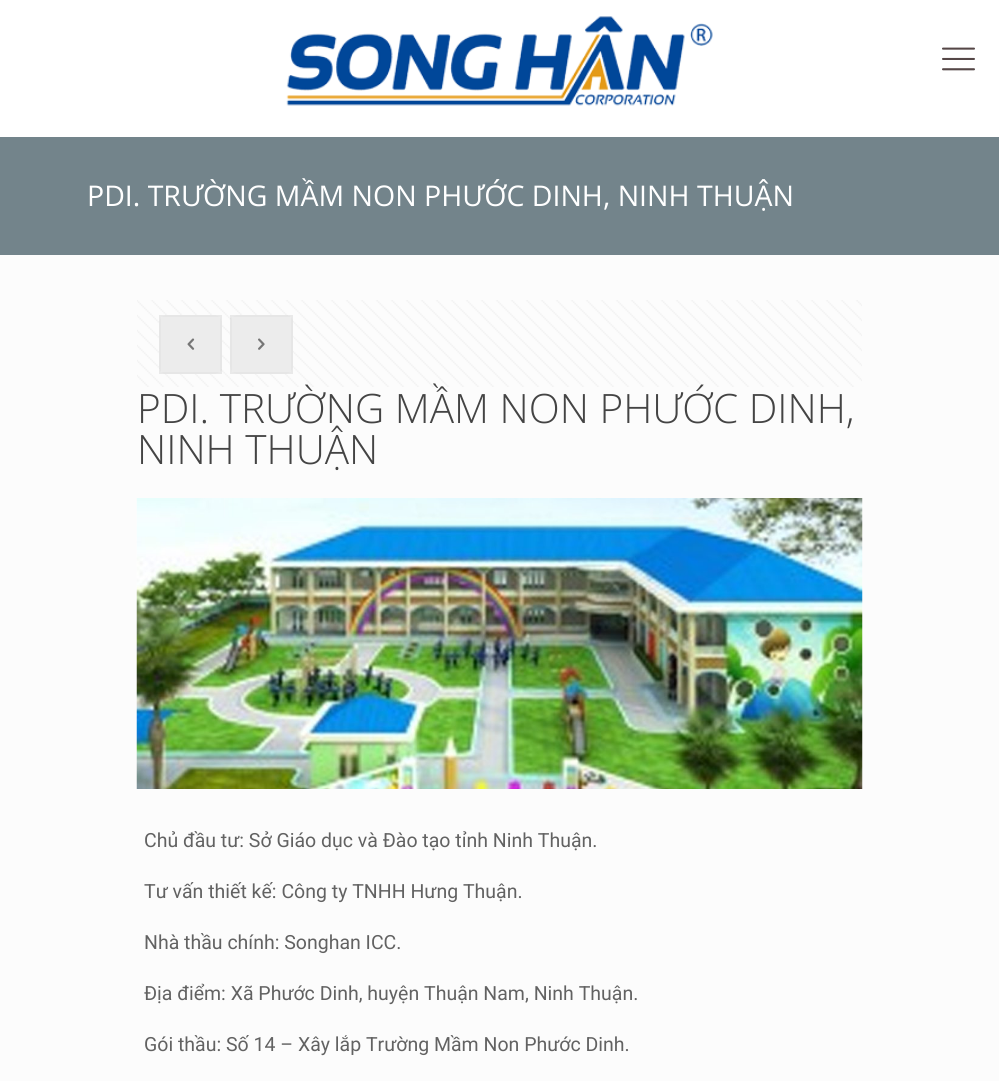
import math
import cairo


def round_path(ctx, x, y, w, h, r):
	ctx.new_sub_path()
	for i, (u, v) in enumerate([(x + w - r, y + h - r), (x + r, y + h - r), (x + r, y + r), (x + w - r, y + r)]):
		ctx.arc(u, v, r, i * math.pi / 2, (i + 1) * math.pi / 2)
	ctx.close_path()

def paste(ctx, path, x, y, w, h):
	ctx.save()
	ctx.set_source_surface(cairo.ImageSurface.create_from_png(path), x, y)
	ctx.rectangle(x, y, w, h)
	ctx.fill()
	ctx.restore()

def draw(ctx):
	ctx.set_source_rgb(0.988, 0.988, 0.988)
	ctx.paint()
	ctx.set_source_rgb(1, 1, 1)
	ctx.rectangle(0, 0, 999, 137)
	ctx.fill()
	paste(ctx, 'media/1.png', 286, 16, 427, 90)
	paste(ctx, 'media/2.png', 942, 47, 33, 24)
	ctx.set_source_rgb(0.451, 0.518, 0.545)
	ctx.rectangle(0, 137, 999, 118)
	ctx.fill()
	ctx.select_font_face('Open Sans')
	ctx.set_font_size(28.5)
	ctx.set_source_rgb(1, 1, 1)
	ctx.move_to(87, 206)
	ctx.show_text('PDI. TRƯỜNG MẦM NON PHƯỚC DINH, NINH THUẬN')
	paste(ctx, 'media/3.png', 137, 300, 725, 87)
	ctx.set_source_rgb(0.969, 0.969, 0.969)
	round_path(ctx, 159, 315, 63, 59, 8)
	ctx.fill()
	ctx.rectangle(160, 316, 61, 57)
	ctx.set_source_rgba(0, 0, 0, 0.03)
	ctx.stroke()
	paste(ctx, 'media/4.png', 187, 338, 8, 12)
	ctx.set_source_rgba(0, 0, 0, 0.05)
	ctx.rectangle(159, 315, 63, 59)
	ctx.fill()
	ctx.set_source_rgb(0.969, 0.969, 0.969)
	round_path(ctx, 230, 315, 63, 59, 8)
	ctx.fill()
	ctx.rectangle(231, 316, 61, 57)
	ctx.set_source_rgba(0, 0, 0, 0.03)
	ctx.stroke()
	paste(ctx, 'media/5.png', 258, 338, 7, 12)
	ctx.set_source_rgba(0, 0, 0, 0.05)
	ctx.rectangle(230, 315, 63, 59)
	ctx.fill()
	ctx.select_font_face('Open Sans Light')
	ctx.set_font_size(40.5)
	ctx.set_source_rgb(0.267, 0.267, 0.267)
	ctx.move_to(137, 423)
	ctx.show_text('PDI. TRƯỜNG MẦM NON PHƯỚC DINH,')
	ctx.move_to(137, 464)
	ctx.show_text('NINH THUẬN')
	paste(ctx, 'media/6.png', 136, 498, 727, 291)
	ctx.select_font_face('Roboto')
	ctx.set_font_size(19.5)
	ctx.set_source_rgb(0.384, 0.384, 0.384)
	for x, y, s in [
		(144, 847, 'Chủ đầu tư: Sở Giáo dục và Đào tạo tỉnh Ninh Thuận.'),
		(144, 898, 'Tư vấn thiết kế: Công ty TNHH Hưng Thuận.'),
		(144, 949, 'Nhà thầu chính: Songhan ICC.'),
		(144, 1000, 'Địa điểm: Xã Phước Dinh, huyện Thuận Nam, Ninh Thuận.'),
		(144, 1051, 'Gói thầu: Số 14 – Xây lắp Trường Mầm Non Phước Dinh.'),
	]:
		ctx.move_to(x, y)
		ctx.show_text(s)


surface = cairo.ImageSurface(cairo.FORMAT_RGB24, 999, 1081)
ctx = cairo.Context(surface)
options = cairo.FontOptions()
options.set_hint_metrics(cairo.HINT_METRICS_OFF)
options.set_hint_style(cairo.HINT_STYLE_NONE)
ctx.set_font_options(options)
ctx.set_miter_limit(4)
draw(ctx)
surface.write_to_png('image.png')
